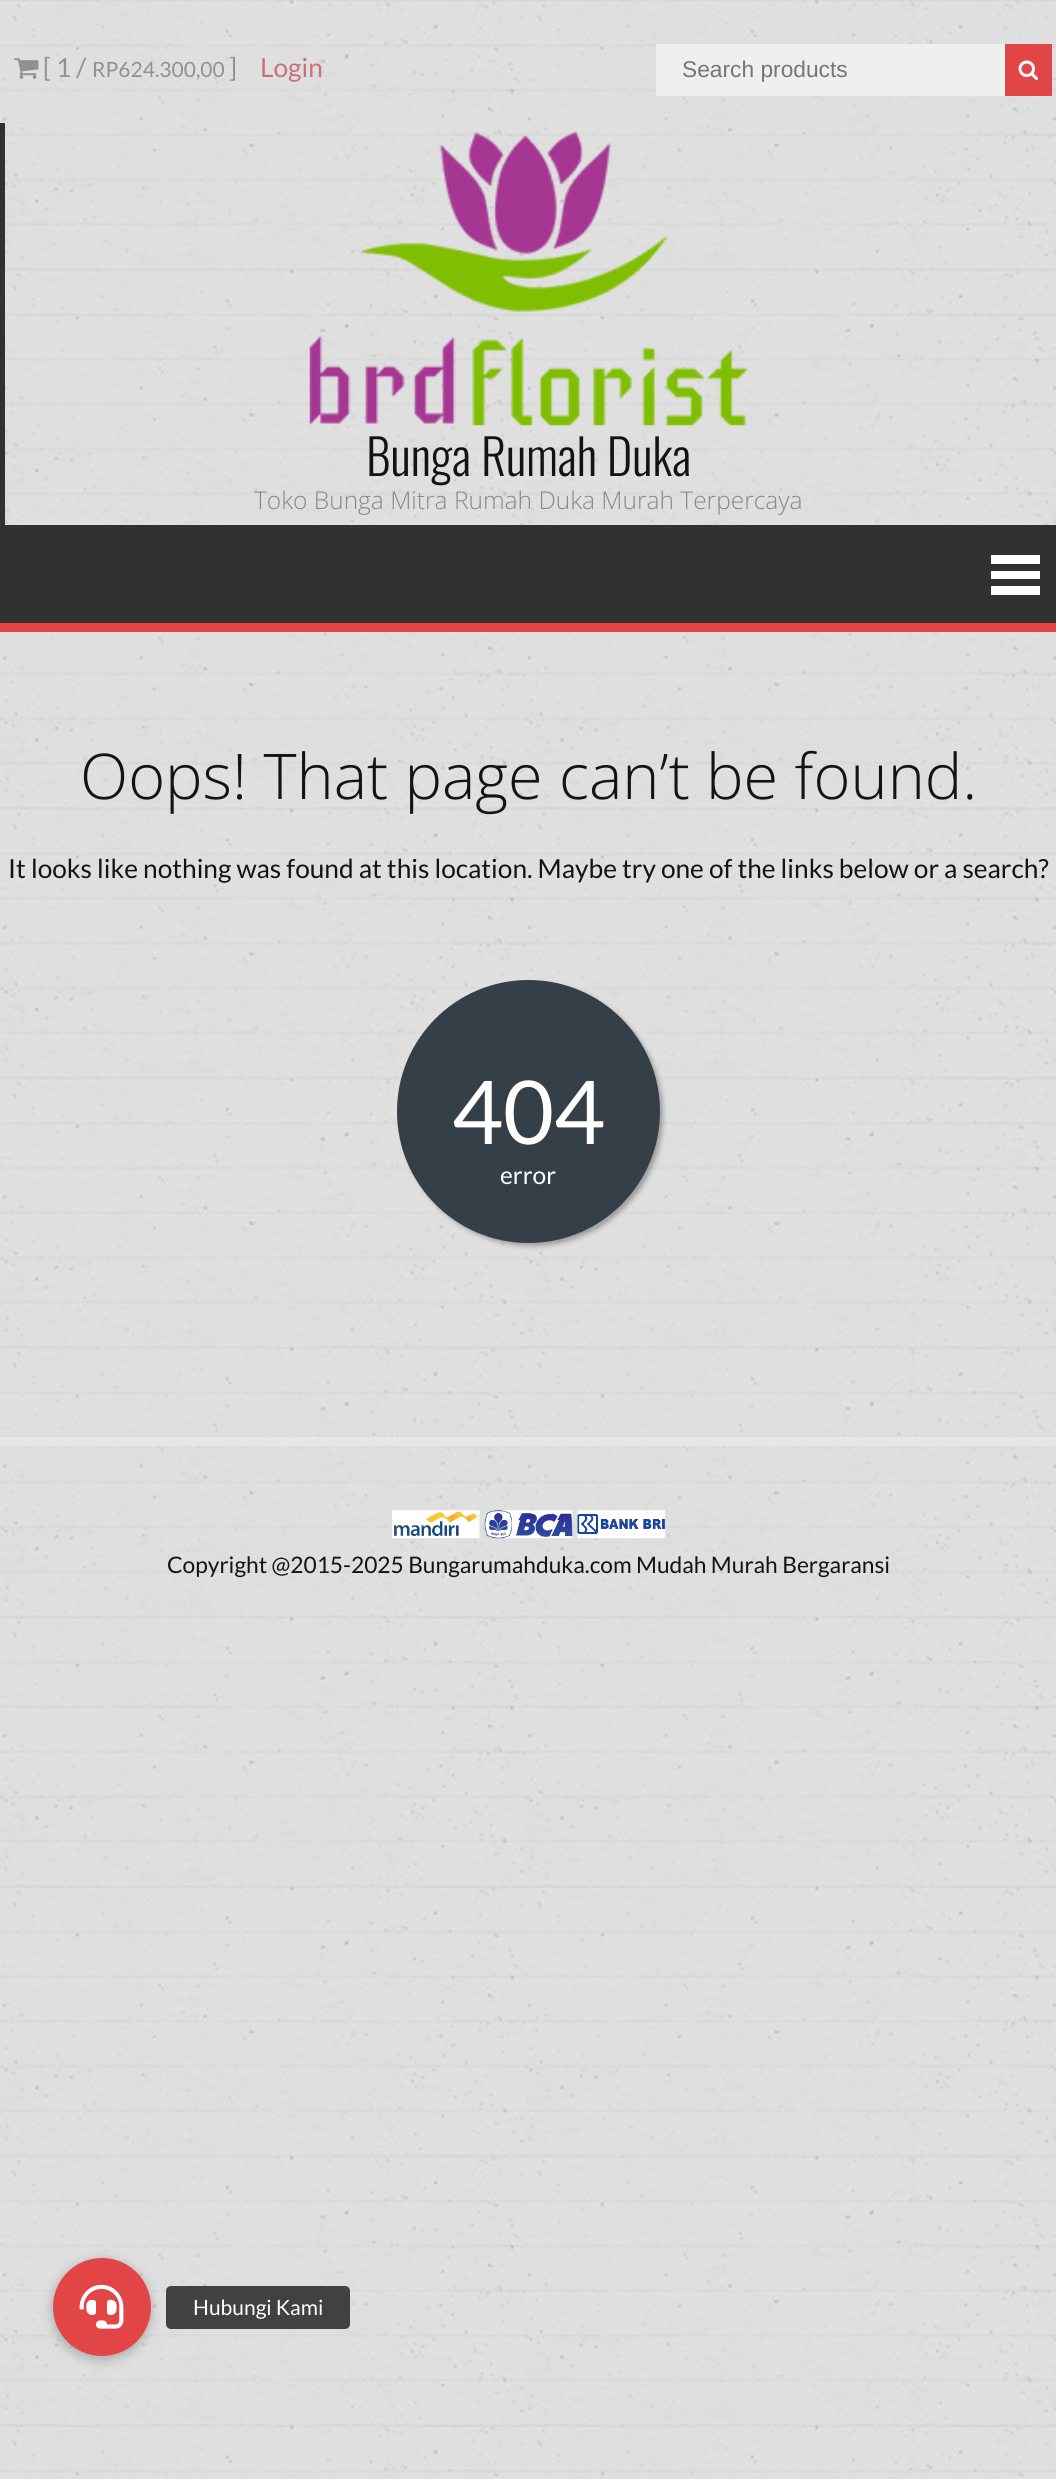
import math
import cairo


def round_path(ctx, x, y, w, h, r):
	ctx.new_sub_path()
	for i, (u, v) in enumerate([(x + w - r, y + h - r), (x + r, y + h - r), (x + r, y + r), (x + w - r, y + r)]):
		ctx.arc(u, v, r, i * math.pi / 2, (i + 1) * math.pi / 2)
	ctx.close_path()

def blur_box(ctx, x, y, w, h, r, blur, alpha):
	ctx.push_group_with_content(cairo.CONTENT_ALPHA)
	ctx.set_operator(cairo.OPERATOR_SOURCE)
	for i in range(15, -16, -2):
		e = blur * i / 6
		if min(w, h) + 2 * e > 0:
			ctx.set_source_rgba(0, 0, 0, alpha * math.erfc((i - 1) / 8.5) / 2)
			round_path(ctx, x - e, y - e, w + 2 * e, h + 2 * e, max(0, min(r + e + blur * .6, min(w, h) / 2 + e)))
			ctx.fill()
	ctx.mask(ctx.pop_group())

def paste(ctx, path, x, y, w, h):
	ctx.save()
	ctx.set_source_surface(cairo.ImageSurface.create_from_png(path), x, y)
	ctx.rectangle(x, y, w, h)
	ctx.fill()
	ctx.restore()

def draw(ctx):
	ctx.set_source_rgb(1, 1, 1)
	ctx.paint()
	paste(ctx, 'media/1.png', 0, 0, 1056, 2479)
	paste(ctx, 'media/2.png', 14, 58, 25, 21)
	ctx.select_font_face('Lato')
	ctx.set_font_size(26.25)
	ctx.set_source_rgb(0.569, 0.569, 0.569)
	ctx.move_to(43, 77)
	ctx.show_text('[ 1 /')
	ctx.set_font_size(21)
	ctx.move_to(92, 77)
	ctx.show_text('RP624.300,00')
	ctx.set_font_size(26.25)
	ctx.move_to(229, 77)
	ctx.show_text(']')
	ctx.set_source_rgb(0.788, 0.443, 0.471)
	ctx.move_to(260, 77)
	ctx.show_text('Login')
	ctx.set_source_rgb(0.937, 0.937, 0.937)
	ctx.rectangle(656, 44, 349, 52)
	ctx.fill()
	ctx.select_font_face('Liberation Sans')
	ctx.set_font_size(22.75)
	ctx.set_source_rgb(0.459, 0.459, 0.459)
	ctx.move_to(682, 77)
	ctx.show_text('Search products')
	ctx.set_source_rgb(0.886, 0.271, 0.271)
	ctx.rectangle(1005, 44, 47, 52)
	ctx.fill()
	paste(ctx, 'media/3.png', 1018, 60, 20, 20)
	ctx.rectangle(0, 623, 1056, 9)
	ctx.fill()
	ctx.set_source_rgb(0.192, 0.192, 0.192)
	ctx.rectangle(5, 525, 1051, 98)
	ctx.rectangle(0, 123, 5, 500)
	ctx.fill()
	ctx.set_source_rgb(1, 1, 1)
	ctx.rectangle(991, 555, 49, 9)
	ctx.rectangle(991, 571, 49, 8)
	ctx.rectangle(991, 586, 49, 9)
	ctx.fill()
	paste(ctx, 'media/4.png', 309, 131, 439, 295)
	ctx.select_font_face('Oswald Light')
	ctx.set_font_size(49)
	ctx.set_source_rgb(0.078, 0.078, 0.078)
	ctx.move_to(366, 476)
	ctx.show_text('Bunga Rumah Duka')
	ctx.select_font_face('Open Sans Light')
	ctx.set_font_size(24.5)
	ctx.set_source_rgb(0.533, 0.533, 0.533)
	ctx.move_to(254, 509)
	ctx.show_text('Toko Bunga Mitra Rumah Duka Murah Terpercaya')
	ctx.set_source_rgb(0.906, 0.906, 0.906)
	ctx.rectangle(0, 1437, 1056, 9)
	ctx.fill()
	ctx.set_font_size(63)
	ctx.set_source_rgb(0.078, 0.078, 0.078)
	ctx.move_to(80, 799)
	ctx.show_text('Oops! That page can’t be found.')
	ctx.select_font_face('Lato')
	ctx.set_font_size(26.25)
	ctx.move_to(8, 878)
	ctx.show_text('It looks like nothing was found at this location. Maybe try one of the links below or a search?')
	ctx.set_source_rgb(0, 0, 0)
	blur_box(ctx, 401, 984, 262, 262, 131, 2.5, 0.3)
	ctx.set_source_rgb(0.208, 0.247, 0.278)
	ctx.arc(528.5, 1111.5, 131.5, 0, 2 * math.pi)
	ctx.fill()
	ctx.set_font_size(88)
	ctx.set_source_rgb(1, 1, 1)
	ctx.move_to(452, 1144)
	ctx.show_text('404')
	ctx.set_font_size(24.5)
	ctx.move_to(500, 1184)
	ctx.show_text('error')
	paste(ctx, 'media/5.png', 392, 1510, 88, 29)
	paste(ctx, 'media/6.png', 484, 1510, 89, 29)
	paste(ctx, 'media/7.png', 577, 1510, 88, 29)
	ctx.set_font_size(22.75)
	ctx.set_source_rgb(0.078, 0.078, 0.078)
	ctx.move_to(167, 1573)
	ctx.show_text('Copyright @2015-2025 Bungarumahduka.com Mudah Murah Bergaransi')
	ctx.set_source_rgb(0, 0, 0)
	blur_box(ctx, 51, 2259, 101, 102, 50.5, 5, 0.2)
	ctx.set_source_rgb(0.886, 0.271, 0.271)
	ctx.arc(102, 2307, 49, 0, 2 * math.pi)
	ctx.fill()
	paste(ctx, 'media/8.png', 79, 2284, 45, 45)
	ctx.set_source_rgb(0.255, 0.255, 0.255)
	round_path(ctx, 166, 2286, 184, 43, 5)
	ctx.fill()
	ctx.set_font_size(21)
	ctx.set_source_rgb(1, 1, 1)
	ctx.move_to(193, 2315)
	ctx.show_text('Hubungi Kami')


surface = cairo.ImageSurface(cairo.FORMAT_RGB24, 1056, 2479)
ctx = cairo.Context(surface)
options = cairo.FontOptions()
options.set_hint_metrics(cairo.HINT_METRICS_OFF)
options.set_hint_style(cairo.HINT_STYLE_NONE)
ctx.set_font_options(options)
ctx.set_miter_limit(4)
draw(ctx)
surface.write_to_png('image.png')
